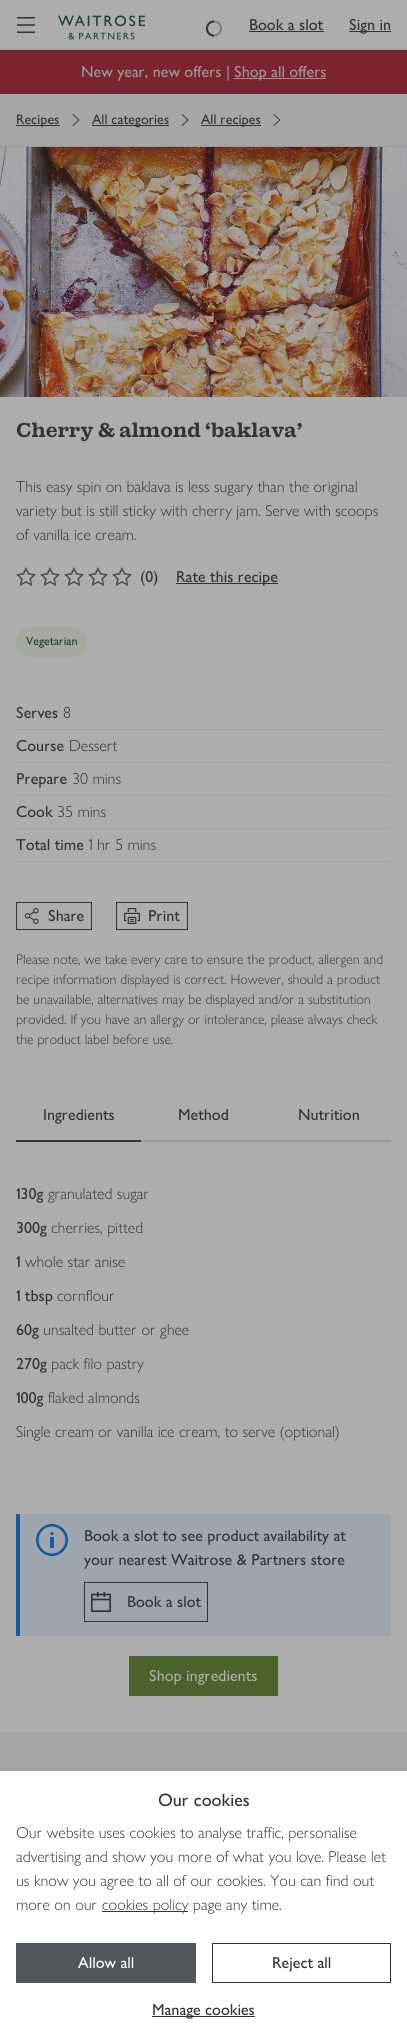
import math
import cairo


def round_path(ctx, x, y, w, h, r):
	ctx.new_sub_path()
	for i, (u, v) in enumerate([(x + w - r, y + h - r), (x + r, y + h - r), (x + r, y + r), (x + w - r, y + r)]):
		ctx.arc(u, v, r, i * math.pi / 2, (i + 1) * math.pi / 2)
	ctx.close_path()

def blur_box(ctx, x, y, w, h, r, blur, alpha):
	ctx.push_group_with_content(cairo.CONTENT_ALPHA)
	ctx.set_operator(cairo.OPERATOR_SOURCE)
	for i in range(15, -16, -2):
		e = blur * i / 6
		if min(w, h) + 2 * e > 0:
			ctx.set_source_rgba(0, 0, 0, alpha * math.erfc((i - 1) / 8.5) / 2)
			round_path(ctx, x - e, y - e, w + 2 * e, h + 2 * e, max(0, min(r + e + blur * .6, min(w, h) / 2 + e)))
			ctx.fill()
	ctx.mask(ctx.pop_group())

def paste(ctx, path, x, y, w, h):
	ctx.save()
	ctx.set_source_surface(cairo.ImageSurface.create_from_png(path), x, y)
	ctx.rectangle(x, y, w, h)
	ctx.fill()
	ctx.restore()

def draw(ctx):
	ctx.set_source_rgb(0.678, 0.678, 0.678)
	ctx.paint()
	ctx.set_source_rgb(0.6, 0.6, 0.6)
	ctx.rectangle(0, 49, 407, 1)
	ctx.fill()
	paste(ctx, 'media/1.png', 17, 17, 18, 16)
	paste(ctx, 'media/2.png', 58, 15, 87, 25)
	ctx.new_path()
	ctx.move_to(219, 23.5)
	ctx.curve_to(225.5, 30, 215.5, 40, 209, 33.5)
	ctx.curve_to(202.5, 27, 212.5, 17, 219, 23.5)
	ctx.close_path()
	ctx.set_source_rgb(0.486, 0.486, 0.486)
	ctx.stroke()
	ctx.new_path()
	ctx.move_to(214, 35.5)
	ctx.curve_to(210, 35.5, 207, 32.5, 207, 28.5)
	ctx.move_to(207, 28.5)
	ctx.curve_to(207, 24.5, 210, 21.5, 214, 21.5)
	ctx.move_to(214, 35.5)
	ctx.curve_to(210, 35.5, 207, 32.5, 207, 28.5)
	ctx.set_source_rgb(0.2, 0.2, 0.2)
	ctx.stroke()
	ctx.select_font_face('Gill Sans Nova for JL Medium')
	ctx.set_font_size(16)
	ctx.move_to(249, 30)
	ctx.show_text('Book a slot')
	ctx.rectangle(249, 31, 75, 1)
	ctx.fill()
	ctx.rectangle(349, 31, 42, 1)
	ctx.fill()
	ctx.move_to(349, 30)
	ctx.show_text('Sign in')
	ctx.set_source_rgb(0.478, 0.141, 0.188)
	ctx.rectangle(0, 50, 407, 44)
	ctx.fill()
	ctx.set_source_rgb(0.608, 0.604, 0.584)
	ctx.move_to(81, 77)
	ctx.show_text('New year, new offers |')
	ctx.rectangle(234, 78, 92, 1)
	ctx.fill()
	ctx.move_to(234, 77)
	ctx.show_text('Shop all offers')
	ctx.set_source_rgb(0.651, 0.651, 0.651)
	ctx.rectangle(0, 94, 407, 52)
	ctx.fill()
	ctx.set_source_rgb(0.6, 0.6, 0.6)
	ctx.rectangle(0, 146, 407, 1)
	ctx.fill()
	ctx.set_source_rgb(0.2, 0.2, 0.2)
	ctx.rectangle(16, 125, 44, 1)
	ctx.fill()
	ctx.set_font_size(14)
	ctx.move_to(16, 124)
	ctx.show_text('Recipes')
	paste(ctx, 'media/3.png', 72, 114, 8, 12)
	ctx.rectangle(92, 125, 77, 1)
	ctx.fill()
	ctx.move_to(92, 124)
	ctx.show_text('All categories')
	paste(ctx, 'media/3.png', 181, 114, 8, 12)
	ctx.rectangle(201, 125, 60, 1)
	ctx.fill()
	ctx.move_to(201, 124)
	ctx.show_text('All recipes')
	paste(ctx, 'media/3.png', 273, 114, 8, 12)
	paste(ctx, 'media/4.png', 0, 147, 407, 250)
	ctx.select_font_face('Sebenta', cairo.FONT_SLANT_NORMAL, cairo.FONT_WEIGHT_BOLD)
	ctx.set_font_size(20)
	ctx.move_to(16, 437)
	ctx.show_text('Cherry & almond ‘baklava’')
	ctx.select_font_face('Gill Sans Nova for JL Light')
	ctx.set_font_size(16)
	for x, y, s in [
		(16, 492, 'This easy spin on baklava is less sugary than the original'),
		(16, 516, 'variety but is still sticky with cherry jam. Serve with scoops'),
		(16, 540, 'of vanilla ice cream.'),
	]:
		ctx.move_to(x, y)
		ctx.show_text(s)
	paste(ctx, 'media/5.png', 16, 567, 20, 19)
	paste(ctx, 'media/5.png', 40, 567, 20, 19)
	paste(ctx, 'media/5.png', 64, 567, 20, 19)
	paste(ctx, 'media/5.png', 88, 567, 20, 19)
	paste(ctx, 'media/5.png', 112, 567, 20, 19)
	ctx.select_font_face('Gill Sans Nova for JL Medium')
	ctx.move_to(140, 582)
	ctx.show_text('(0)')
	ctx.rectangle(176, 583, 102, 1)
	ctx.fill()
	ctx.move_to(176, 582)
	ctx.show_text('Rate this recipe')
	ctx.set_source_rgb(0.647, 0.663, 0.627)
	round_path(ctx, 16, 627, 71, 30, 15)
	ctx.fill()
	ctx.set_font_size(12)
	ctx.set_source_rgb(0.129, 0.247, 0.204)
	ctx.move_to(26, 645)
	ctx.show_text('Vegetarian')
	ctx.set_source_rgb(0.639, 0.639, 0.639)
	ctx.rectangle(16, 729, 375, 1)
	ctx.fill()
	ctx.set_font_size(16)
	ctx.set_source_rgb(0.2, 0.2, 0.2)
	ctx.move_to(16, 718)
	ctx.show_text('Serves')
	ctx.select_font_face('Gill Sans Nova for JL Light')
	ctx.move_to(63, 718)
	ctx.show_text('8')
	ctx.set_source_rgb(0.639, 0.639, 0.639)
	ctx.rectangle(16, 762, 375, 1)
	ctx.fill()
	ctx.select_font_face('Gill Sans Nova for JL Medium')
	ctx.set_source_rgb(0.2, 0.2, 0.2)
	ctx.move_to(16, 751)
	ctx.show_text('Course')
	ctx.select_font_face('Gill Sans Nova for JL Light')
	ctx.move_to(69, 751)
	ctx.show_text('Dessert')
	ctx.set_source_rgb(0.639, 0.639, 0.639)
	ctx.rectangle(16, 795, 375, 1)
	ctx.fill()
	ctx.select_font_face('Gill Sans Nova for JL Medium')
	ctx.set_source_rgb(0.2, 0.2, 0.2)
	ctx.move_to(16, 784)
	ctx.show_text('Prepare')
	ctx.select_font_face('Gill Sans Nova for JL Light')
	ctx.move_to(72, 784)
	ctx.show_text('30 mins')
	ctx.set_source_rgb(0.639, 0.639, 0.639)
	ctx.rectangle(16, 828, 375, 1)
	ctx.fill()
	ctx.select_font_face('Gill Sans Nova for JL Medium')
	ctx.set_source_rgb(0.2, 0.2, 0.2)
	ctx.move_to(16, 817)
	ctx.show_text('Cook')
	ctx.select_font_face('Gill Sans Nova for JL Light')
	ctx.move_to(57, 817)
	ctx.show_text('35 mins')
	ctx.set_source_rgb(0.639, 0.639, 0.639)
	ctx.rectangle(16, 861, 375, 1)
	ctx.fill()
	ctx.select_font_face('Gill Sans Nova for JL Medium')
	ctx.set_source_rgb(0.2, 0.2, 0.2)
	ctx.move_to(16, 850)
	ctx.show_text('Total time')
	ctx.select_font_face('Gill Sans Nova for JL Light')
	ctx.move_to(88, 850)
	ctx.show_text('1 hr 5 mins')
	ctx.rectangle(16.5, 902.5, 75, 27)
	ctx.set_line_width(1)
	ctx.stroke()
	paste(ctx, 'media/6.png', 24, 908, 15, 16)
	ctx.select_font_face('Gill Sans Nova for JL Medium')
	ctx.move_to(48, 921)
	ctx.show_text('Share')
	ctx.rectangle(116.5, 902.5, 71, 27)
	ctx.stroke()
	paste(ctx, 'media/7.png', 124, 908, 16, 16)
	ctx.move_to(148, 921)
	ctx.show_text('Print')
	ctx.select_font_face('Gill Sans Nova for JL Light')
	ctx.set_font_size(14)
	for x, y, s in [
		(16, 964, 'Please note, we take every care to ensure the product, allergen and'),
		(16, 984, 'recipe information displayed is correct. However, should a product'),
		(16, 1004, 'be unavailable, alternatives may be displayed and/or a substitution'),
		(16, 1024, 'provided. If you have an allergy or intolerance, please always check'),
		(16, 1044, 'the product label before use.'),
	]:
		ctx.move_to(x, y)
		ctx.show_text(s)
	ctx.rectangle(16, 1140, 125, 2)
	ctx.fill()
	ctx.select_font_face('Gill Sans Nova for JL Medium')
	ctx.set_font_size(16)
	ctx.move_to(43, 1120)
	ctx.show_text('Ingredients')
	ctx.set_source_rgb(0.6, 0.6, 0.6)
	ctx.rectangle(141, 1140, 250, 2)
	ctx.fill()
	ctx.set_source_rgb(0.2, 0.2, 0.2)
	for x, y, s in [
		(178, 1120, 'Method'),
		(298, 1120, 'Nutrition'),
		(16, 1199, '130g'),
	]:
		ctx.move_to(x, y)
		ctx.show_text(s)
	ctx.select_font_face('Gill Sans Nova for JL Light')
	ctx.move_to(48, 1199)
	ctx.show_text('granulated sugar')
	ctx.select_font_face('Gill Sans Nova for JL Medium')
	ctx.move_to(16, 1233)
	ctx.show_text('300g')
	ctx.select_font_face('Gill Sans Nova for JL Light')
	ctx.move_to(51, 1233)
	ctx.show_text('cherries, pitted')
	ctx.select_font_face('Gill Sans Nova for JL Medium')
	ctx.move_to(16, 1267)
	ctx.show_text('1')
	ctx.select_font_face('Gill Sans Nova for JL Light')
	ctx.move_to(25, 1267)
	ctx.show_text('whole star anise')
	ctx.select_font_face('Gill Sans Nova for JL Medium')
	ctx.move_to(16, 1301)
	ctx.show_text('1 tbsp')
	ctx.select_font_face('Gill Sans Nova for JL Light')
	ctx.move_to(57, 1301)
	ctx.show_text('cornflour')
	ctx.select_font_face('Gill Sans Nova for JL Medium')
	ctx.move_to(16, 1335)
	ctx.show_text('60g')
	ctx.select_font_face('Gill Sans Nova for JL Light')
	ctx.move_to(43, 1335)
	ctx.show_text('unsalted butter or ghee')
	ctx.select_font_face('Gill Sans Nova for JL Medium')
	ctx.move_to(16, 1369)
	ctx.show_text('270g')
	ctx.select_font_face('Gill Sans Nova for JL Light')
	ctx.move_to(51, 1369)
	ctx.show_text('pack filo pastry')
	ctx.select_font_face('Gill Sans Nova for JL Medium')
	ctx.move_to(16, 1403)
	ctx.show_text('100g')
	ctx.select_font_face('Gill Sans Nova for JL Light')
	ctx.move_to(48, 1403)
	ctx.show_text('flaked almonds')
	ctx.move_to(16, 1437)
	ctx.show_text('Single cream or vanilla ice cream, to serve (optional)')
	ctx.set_source_rgb(0.62, 0.647, 0.675)
	ctx.rectangle(20, 1514, 371, 122)
	ctx.fill()
	ctx.set_source_rgb(0.078, 0.353, 0.627)
	ctx.rectangle(16, 1514, 4, 122)
	ctx.fill()
	paste(ctx, 'media/8.png', 36, 1524, 32, 32)
	ctx.select_font_face('Gill Sans Nova for JL Medium')
	ctx.set_source_rgb(0.2, 0.2, 0.2)
	ctx.move_to(84, 1541)
	ctx.show_text('Book a slot to see product availability at')
	ctx.move_to(84, 1565)
	ctx.show_text('your nearest Waitrose & Partners store')
	ctx.rectangle(84.5, 1582.5, 123, 39)
	ctx.stroke()
	paste(ctx, 'media/9.png', 91, 1592, 20, 20)
	ctx.move_to(127, 1607)
	ctx.show_text('Book a slot')
	ctx.set_source_rgb(0.294, 0.384, 0.169)
	ctx.rectangle(129, 1656, 149, 40)
	ctx.fill()
	ctx.set_source_rgb(0.678, 0.678, 0.678)
	ctx.move_to(149, 1681)
	ctx.show_text('Shop ingredients')
	ctx.set_source_rgb(0.651, 0.651, 0.651)
	ctx.rectangle(0, 1732, 407, 39)
	ctx.fill()
	ctx.set_source_rgb(0.2, 0.2, 0.2)
	blur_box(ctx, 0, 1774, 407, 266, 0, 3.5, 0.4)
	ctx.set_source_rgb(1, 1, 1)
	ctx.rectangle(0, 1771, 407, 266)
	ctx.fill()
	ctx.set_font_size(18)
	ctx.set_source_rgb(0.2, 0.2, 0.2)
	ctx.move_to(158, 1806)
	ctx.show_text('Our cookies')
	ctx.select_font_face('Gill Sans Nova for JL Light')
	ctx.set_font_size(16)
	for x, y, s in [
		(16, 1838, 'Our website uses cookies to analyse traffic, personalise'),
		(16, 1862, 'advertising and show you more of what you love. Please let'),
		(16, 1886, 'us know you agree to all of our cookies. You can find out'),
		(16, 1910, 'more on our'),
	]:
		ctx.move_to(x, y)
		ctx.show_text(s)
	ctx.rectangle(102, 1911, 86, 1)
	ctx.fill()
	ctx.move_to(102, 1910)
	ctx.show_text('cookies policy page any time.')
	ctx.set_source_rgb(0.325, 0.337, 0.353)
	ctx.rectangle(16, 1943, 180, 40)
	ctx.fill()
	ctx.select_font_face('Gill Sans Nova for JL Medium')
	ctx.set_source_rgb(1, 1, 1)
	ctx.move_to(78, 1968)
	ctx.show_text('Allow all')
	ctx.rectangle(212.5, 1943.5, 178, 39)
	ctx.set_source_rgb(0.2, 0.2, 0.2)
	ctx.stroke()
	ctx.move_to(272, 1968)
	ctx.show_text('Reject all')
	ctx.rectangle(152, 2016, 103, 1)
	ctx.fill()
	ctx.move_to(152, 2015)
	ctx.show_text('Manage cookies')


surface = cairo.ImageSurface(cairo.FORMAT_RGB24, 407, 2037)
ctx = cairo.Context(surface)
options = cairo.FontOptions()
options.set_hint_metrics(cairo.HINT_METRICS_OFF)
options.set_hint_style(cairo.HINT_STYLE_NONE)
ctx.set_font_options(options)
ctx.set_miter_limit(4)
draw(ctx)
surface.write_to_png('image.png')
